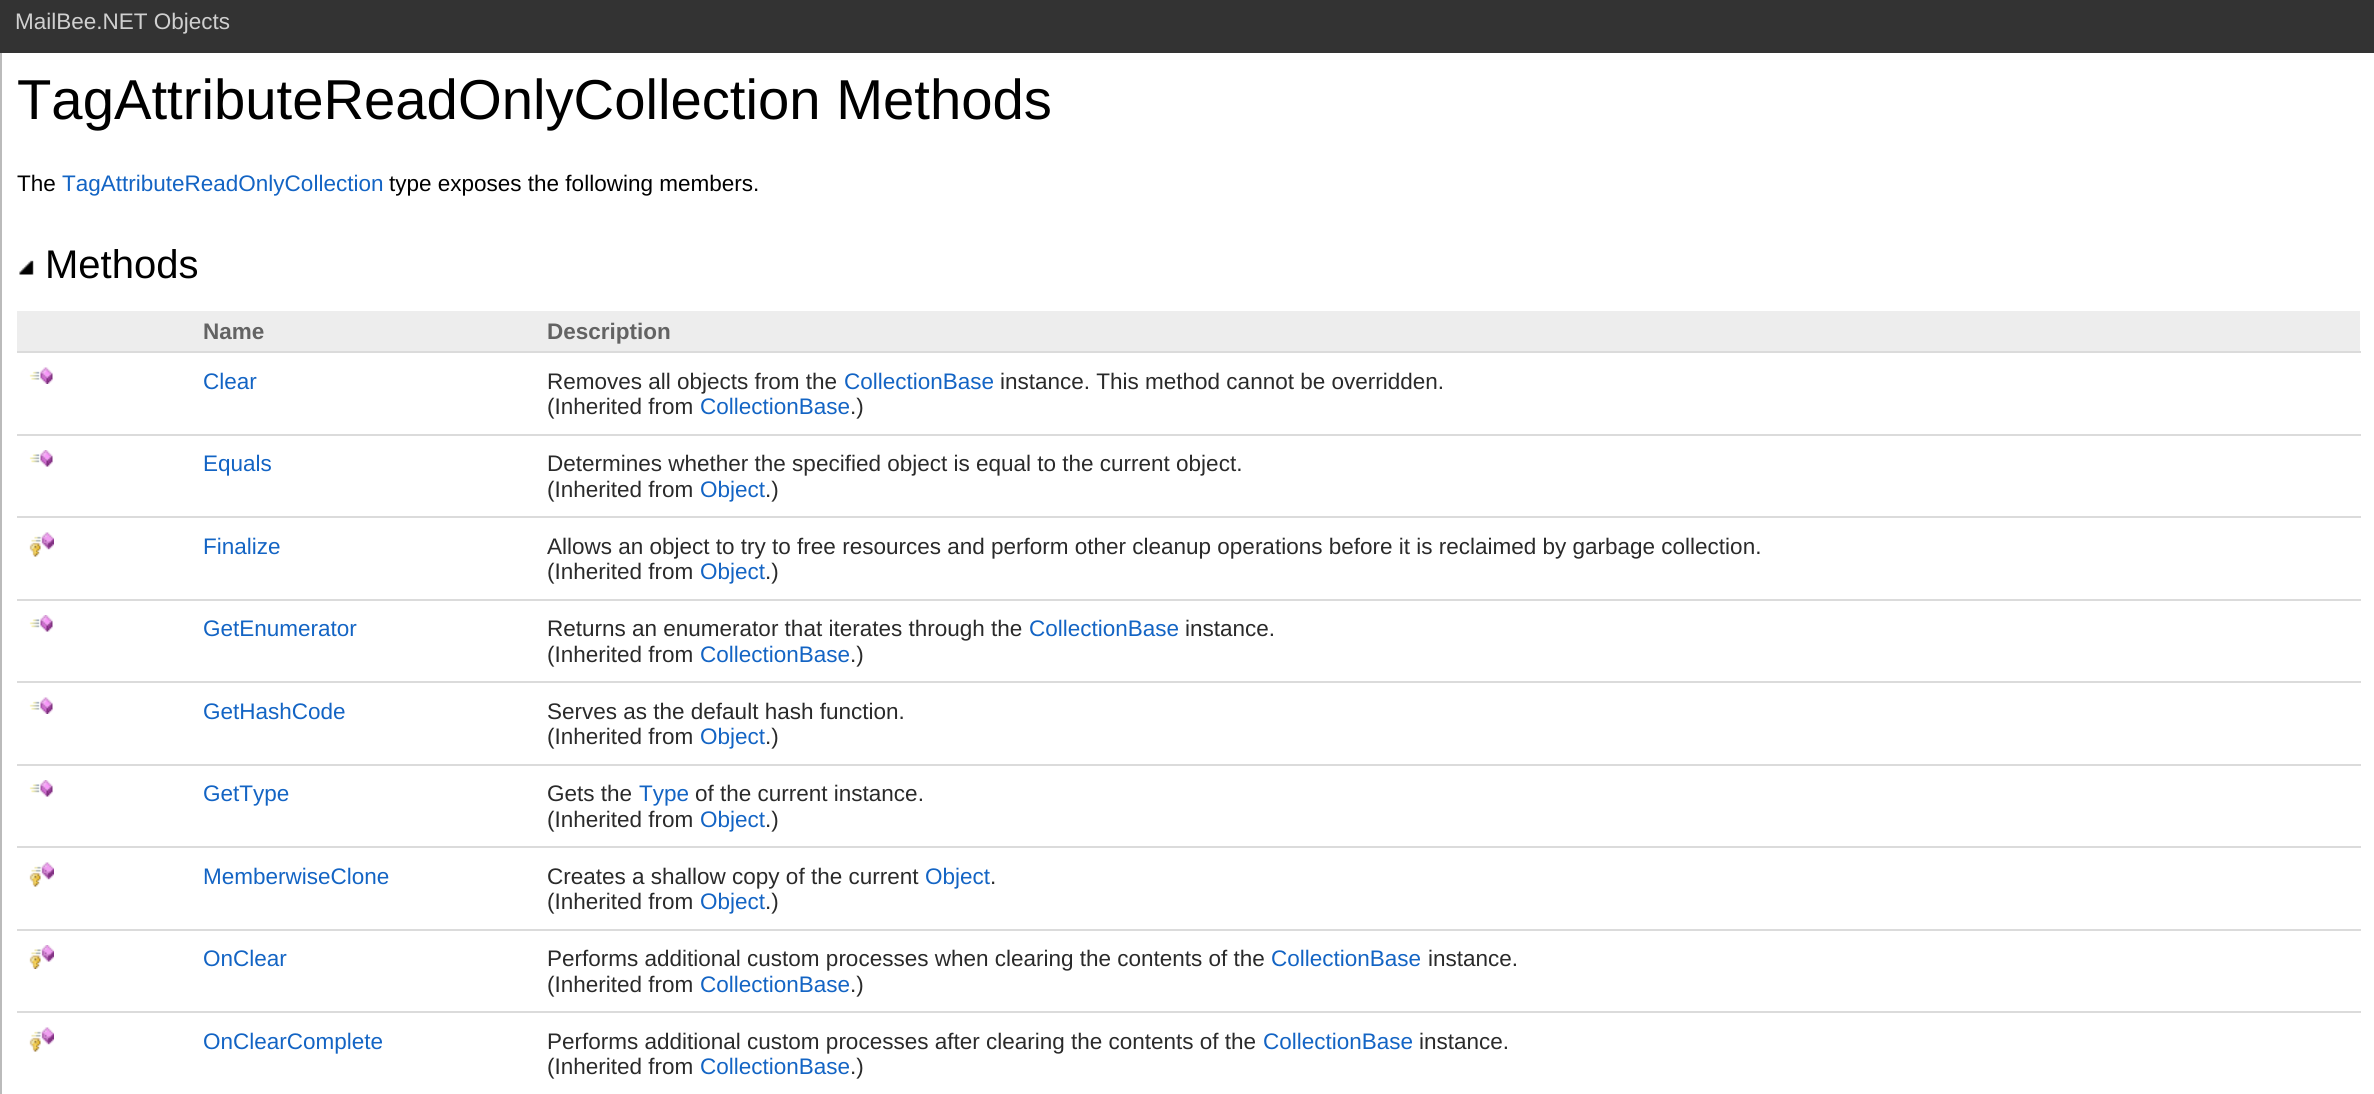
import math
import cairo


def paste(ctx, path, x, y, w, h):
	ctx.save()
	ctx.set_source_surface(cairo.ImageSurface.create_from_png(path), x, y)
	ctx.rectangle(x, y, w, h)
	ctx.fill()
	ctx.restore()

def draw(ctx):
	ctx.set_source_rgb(1, 1, 1)
	ctx.paint()
	ctx.set_source_rgb(0.2, 0.2, 0.2)
	ctx.rectangle(0, 0, 2374, 53)
	ctx.fill()
	ctx.select_font_face('Liberation Sans')
	ctx.set_font_size(22.5)
	ctx.set_source_rgb(0.816, 0.816, 0.816)
	ctx.move_to(15, 29)
	ctx.show_text('MailBee.NET Objects')
	ctx.set_source_rgb(0.733, 0.733, 0.733)
	ctx.rectangle(0, 53, 2, 1041)
	ctx.fill()
	ctx.set_font_size(56.25)
	ctx.set_source_rgb(0, 0, 0)
	ctx.move_to(17, 119)
	ctx.show_text('TagAttributeReadOnlyCollection Methods')
	ctx.set_font_size(22.5)
	ctx.move_to(17, 191)
	ctx.show_text('The')
	ctx.set_source_rgb(0.075, 0.392, 0.769)
	ctx.move_to(62, 191)
	ctx.show_text('TagAttributeReadOnlyCollection')
	ctx.set_source_rgb(0, 0, 0)
	ctx.move_to(389, 191)
	ctx.show_text('type exposes the following members.')
	paste(ctx, 'media/1.png', 19, 260, 15, 15)
	ctx.set_font_size(40)
	ctx.move_to(45, 278)
	ctx.show_text('Methods')
	ctx.set_source_rgb(0.929, 0.929, 0.929)
	ctx.rectangle(17, 311, 2343, 40)
	ctx.fill()
	ctx.select_font_face('Liberation Sans', cairo.FONT_SLANT_NORMAL, cairo.FONT_WEIGHT_BOLD)
	ctx.set_font_size(22.5)
	ctx.set_source_rgb(0.388, 0.388, 0.388)
	ctx.move_to(203, 339)
	ctx.show_text('Name')
	ctx.set_source_rgb(0.859, 0.859, 0.859)
	ctx.rectangle(17, 351, 2344, 2)
	ctx.fill()
	ctx.set_source_rgb(0.388, 0.388, 0.388)
	ctx.move_to(547, 339)
	ctx.show_text('Description')
	paste(ctx, 'media/2.png', 29, 367, 24, 17)
	ctx.select_font_face('Liberation Sans')
	ctx.set_source_rgb(0.075, 0.392, 0.769)
	ctx.move_to(203, 389)
	ctx.show_text('Clear')
	ctx.set_source_rgb(0.859, 0.859, 0.859)
	ctx.rectangle(17, 434, 2344, 2)
	ctx.fill()
	ctx.set_source_rgb(0.165, 0.165, 0.165)
	ctx.move_to(547, 389)
	ctx.show_text('Removes all objects from the')
	ctx.set_source_rgb(0.075, 0.392, 0.769)
	ctx.move_to(844, 389)
	ctx.show_text('CollectionBase')
	ctx.set_source_rgb(0.165, 0.165, 0.165)
	ctx.move_to(1000, 389)
	ctx.show_text('instance. This method cannot be overridden.')
	ctx.move_to(547, 414)
	ctx.show_text('(Inherited from')
	ctx.set_source_rgb(0.075, 0.392, 0.769)
	ctx.move_to(700, 414)
	ctx.show_text('CollectionBase')
	ctx.set_source_rgb(0.165, 0.165, 0.165)
	ctx.move_to(850, 414)
	ctx.show_text('.)')
	paste(ctx, 'media/3.png', 29, 450, 24, 17)
	ctx.set_source_rgb(0.075, 0.392, 0.769)
	ctx.move_to(203, 471)
	ctx.show_text('Equals')
	ctx.set_source_rgb(0.859, 0.859, 0.859)
	ctx.rectangle(17, 516, 2344, 2)
	ctx.fill()
	ctx.set_source_rgb(0.165, 0.165, 0.165)
	ctx.move_to(547, 471)
	ctx.show_text('Determines whether the specified object is equal to the current object.')
	ctx.move_to(547, 497)
	ctx.show_text('(Inherited from')
	ctx.set_source_rgb(0.075, 0.392, 0.769)
	ctx.move_to(700, 497)
	ctx.show_text('Object')
	ctx.set_source_rgb(0.165, 0.165, 0.165)
	ctx.move_to(765, 497)
	ctx.show_text('.)')
	paste(ctx, 'media/4.png', 29, 532, 25, 25)
	ctx.set_source_rgb(0.075, 0.392, 0.769)
	ctx.move_to(203, 554)
	ctx.show_text('Finalize')
	ctx.set_source_rgb(0.859, 0.859, 0.859)
	ctx.rectangle(17, 599, 2344, 2)
	ctx.fill()
	ctx.set_source_rgb(0.165, 0.165, 0.165)
	ctx.move_to(547, 554)
	ctx.show_text('Allows an object to try to free resources and perform other cleanup operations before it is reclaimed by garbage collection.')
	ctx.move_to(547, 579)
	ctx.show_text('(Inherited from')
	ctx.set_source_rgb(0.075, 0.392, 0.769)
	ctx.move_to(700, 579)
	ctx.show_text('Object')
	ctx.set_source_rgb(0.165, 0.165, 0.165)
	ctx.move_to(765, 579)
	ctx.show_text('.)')
	paste(ctx, 'media/3.png', 29, 615, 24, 17)
	ctx.set_source_rgb(0.075, 0.392, 0.769)
	ctx.move_to(203, 636)
	ctx.show_text('GetEnumerator')
	ctx.set_source_rgb(0.859, 0.859, 0.859)
	ctx.rectangle(17, 681, 2344, 2)
	ctx.fill()
	ctx.set_source_rgb(0.165, 0.165, 0.165)
	ctx.move_to(547, 636)
	ctx.show_text('Returns an enumerator that iterates through the')
	ctx.set_source_rgb(0.075, 0.392, 0.769)
	ctx.move_to(1029, 636)
	ctx.show_text('CollectionBase')
	ctx.set_source_rgb(0.165, 0.165, 0.165)
	ctx.move_to(1185, 636)
	ctx.show_text('instance.')
	ctx.move_to(547, 662)
	ctx.show_text('(Inherited from')
	ctx.set_source_rgb(0.075, 0.392, 0.769)
	ctx.move_to(700, 662)
	ctx.show_text('CollectionBase')
	ctx.set_source_rgb(0.165, 0.165, 0.165)
	ctx.move_to(850, 662)
	ctx.show_text('.)')
	paste(ctx, 'media/2.png', 29, 697, 24, 17)
	ctx.set_source_rgb(0.075, 0.392, 0.769)
	ctx.move_to(203, 719)
	ctx.show_text('GetHashCode')
	ctx.set_source_rgb(0.859, 0.859, 0.859)
	ctx.rectangle(17, 764, 2344, 2)
	ctx.fill()
	ctx.set_source_rgb(0.165, 0.165, 0.165)
	ctx.move_to(547, 719)
	ctx.show_text('Serves as the default hash function.')
	ctx.move_to(547, 744)
	ctx.show_text('(Inherited from')
	ctx.set_source_rgb(0.075, 0.392, 0.769)
	ctx.move_to(700, 744)
	ctx.show_text('Object')
	ctx.set_source_rgb(0.165, 0.165, 0.165)
	ctx.move_to(765, 744)
	ctx.show_text('.)')
	paste(ctx, 'media/3.png', 29, 780, 24, 17)
	ctx.set_source_rgb(0.075, 0.392, 0.769)
	ctx.move_to(203, 801)
	ctx.show_text('GetType')
	ctx.set_source_rgb(0.859, 0.859, 0.859)
	ctx.rectangle(17, 846, 2344, 2)
	ctx.fill()
	ctx.set_source_rgb(0.165, 0.165, 0.165)
	ctx.move_to(547, 801)
	ctx.show_text('Gets the')
	ctx.set_source_rgb(0.075, 0.392, 0.769)
	ctx.move_to(639, 801)
	ctx.show_text('Type')
	ctx.set_source_rgb(0.165, 0.165, 0.165)
	ctx.move_to(695, 801)
	ctx.show_text('of the current instance.')
	ctx.move_to(547, 827)
	ctx.show_text('(Inherited from')
	ctx.set_source_rgb(0.075, 0.392, 0.769)
	ctx.move_to(700, 827)
	ctx.show_text('Object')
	ctx.set_source_rgb(0.165, 0.165, 0.165)
	ctx.move_to(765, 827)
	ctx.show_text('.)')
	paste(ctx, 'media/4.png', 29, 862, 25, 25)
	ctx.set_source_rgb(0.075, 0.392, 0.769)
	ctx.move_to(203, 884)
	ctx.show_text('MemberwiseClone')
	ctx.set_source_rgb(0.859, 0.859, 0.859)
	ctx.rectangle(17, 929, 2344, 2)
	ctx.fill()
	ctx.set_source_rgb(0.165, 0.165, 0.165)
	ctx.move_to(547, 884)
	ctx.show_text('Creates a shallow copy of the current')
	ctx.set_source_rgb(0.075, 0.392, 0.769)
	ctx.move_to(925, 884)
	ctx.show_text('Object')
	ctx.set_source_rgb(0.165, 0.165, 0.165)
	ctx.move_to(990, 884)
	ctx.show_text('.')
	ctx.move_to(547, 909)
	ctx.show_text('(Inherited from')
	ctx.set_source_rgb(0.075, 0.392, 0.769)
	ctx.move_to(700, 909)
	ctx.show_text('Object')
	ctx.set_source_rgb(0.165, 0.165, 0.165)
	ctx.move_to(765, 909)
	ctx.show_text('.)')
	paste(ctx, 'media/5.png', 29, 945, 25, 24)
	ctx.set_source_rgb(0.075, 0.392, 0.769)
	ctx.move_to(203, 966)
	ctx.show_text('OnClear')
	ctx.set_source_rgb(0.859, 0.859, 0.859)
	ctx.rectangle(17, 1011, 2344, 2)
	ctx.fill()
	ctx.set_source_rgb(0.165, 0.165, 0.165)
	ctx.move_to(547, 966)
	ctx.show_text('Performs additional custom processes when clearing the contents of the')
	ctx.set_source_rgb(0.075, 0.392, 0.769)
	ctx.move_to(1271, 966)
	ctx.show_text('CollectionBase')
	ctx.set_source_rgb(0.165, 0.165, 0.165)
	ctx.move_to(1428, 966)
	ctx.show_text('instance.')
	ctx.move_to(547, 992)
	ctx.show_text('(Inherited from')
	ctx.set_source_rgb(0.075, 0.392, 0.769)
	ctx.move_to(700, 992)
	ctx.show_text('CollectionBase')
	ctx.set_source_rgb(0.165, 0.165, 0.165)
	ctx.move_to(850, 992)
	ctx.show_text('.)')
	paste(ctx, 'media/4.png', 29, 1027, 25, 25)
	ctx.set_source_rgb(0.075, 0.392, 0.769)
	ctx.move_to(203, 1049)
	ctx.show_text('OnClearComplete')
	ctx.set_source_rgb(0.165, 0.165, 0.165)
	ctx.move_to(547, 1049)
	ctx.show_text('Performs additional custom processes after clearing the contents of the')
	ctx.set_source_rgb(0.075, 0.392, 0.769)
	ctx.move_to(1263, 1049)
	ctx.show_text('CollectionBase')
	ctx.set_source_rgb(0.165, 0.165, 0.165)
	ctx.move_to(1419, 1049)
	ctx.show_text('instance.')
	ctx.move_to(547, 1074)
	ctx.show_text('(Inherited from')
	ctx.set_source_rgb(0.075, 0.392, 0.769)
	ctx.move_to(700, 1074)
	ctx.show_text('CollectionBase')
	ctx.set_source_rgb(0.165, 0.165, 0.165)
	ctx.move_to(850, 1074)
	ctx.show_text('.)')


surface = cairo.ImageSurface(cairo.FORMAT_RGB24, 2374, 1094)
ctx = cairo.Context(surface)
options = cairo.FontOptions()
options.set_hint_metrics(cairo.HINT_METRICS_OFF)
options.set_hint_style(cairo.HINT_STYLE_NONE)
ctx.set_font_options(options)
ctx.set_miter_limit(4)
draw(ctx)
surface.write_to_png('image.png')
